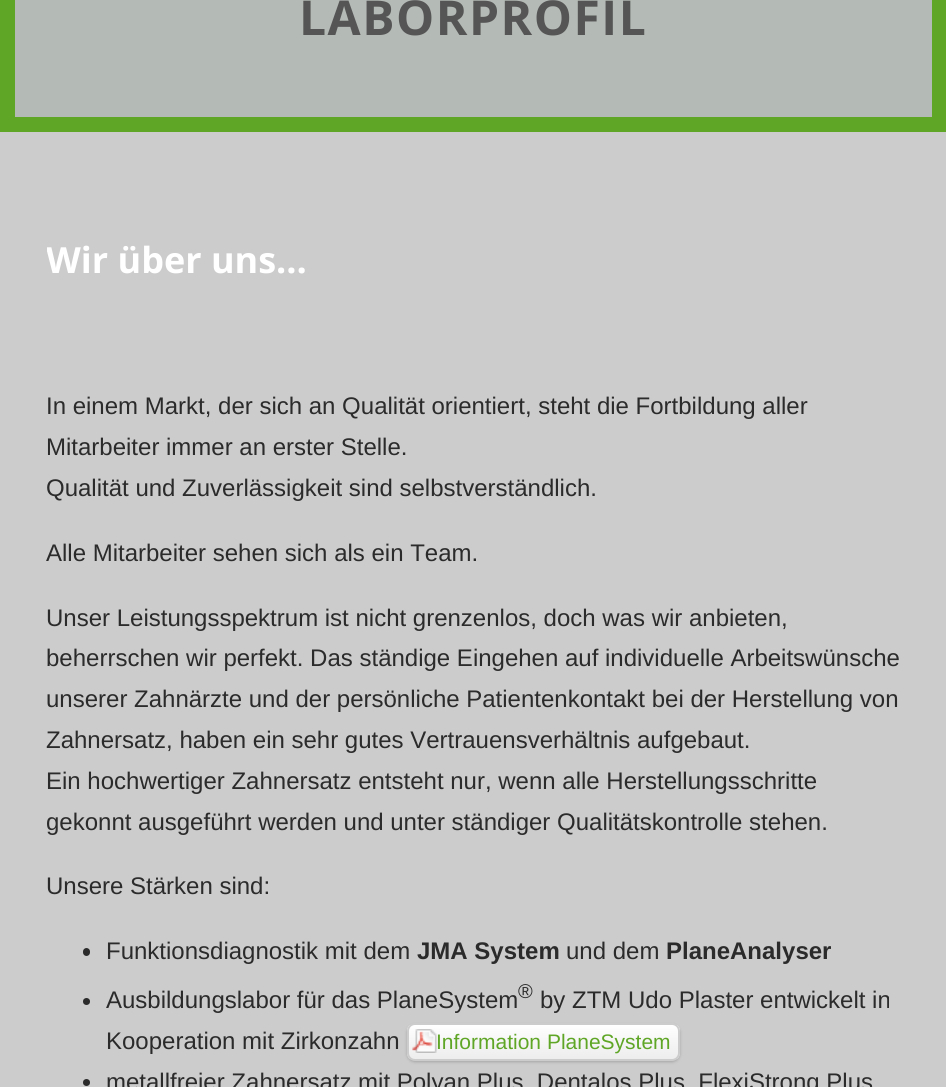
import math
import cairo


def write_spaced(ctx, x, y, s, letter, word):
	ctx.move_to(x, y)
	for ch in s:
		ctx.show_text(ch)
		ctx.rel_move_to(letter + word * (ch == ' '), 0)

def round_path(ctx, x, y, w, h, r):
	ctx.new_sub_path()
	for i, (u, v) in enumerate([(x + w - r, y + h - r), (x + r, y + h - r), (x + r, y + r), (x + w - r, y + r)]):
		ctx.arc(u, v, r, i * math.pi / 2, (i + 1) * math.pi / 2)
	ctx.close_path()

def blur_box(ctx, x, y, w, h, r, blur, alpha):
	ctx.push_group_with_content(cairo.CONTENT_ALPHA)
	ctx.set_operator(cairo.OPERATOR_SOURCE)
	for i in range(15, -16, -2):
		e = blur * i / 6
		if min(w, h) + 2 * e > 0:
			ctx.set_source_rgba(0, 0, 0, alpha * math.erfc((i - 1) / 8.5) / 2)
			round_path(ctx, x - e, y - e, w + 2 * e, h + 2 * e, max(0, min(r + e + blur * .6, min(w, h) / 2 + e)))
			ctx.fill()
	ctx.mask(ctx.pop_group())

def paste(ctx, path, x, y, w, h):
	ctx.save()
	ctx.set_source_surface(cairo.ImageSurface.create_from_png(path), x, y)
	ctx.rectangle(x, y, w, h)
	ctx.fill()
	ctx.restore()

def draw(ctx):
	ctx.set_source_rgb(0.8, 0.8, 0.8)
	ctx.paint()
	ctx.set_source_rgb(0.706, 0.729, 0.714)
	ctx.rectangle(7.5, -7.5, 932, 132)
	ctx.fill_preserve()
	ctx.set_source_rgb(0.373, 0.651, 0.149)
	ctx.set_line_width(15)
	ctx.stroke()
	ctx.select_font_face('Open Sans', cairo.FONT_SLANT_NORMAL, cairo.FONT_WEIGHT_BOLD)
	ctx.set_font_size(48)
	ctx.set_source_rgb(0.333, 0.333, 0.333)
	write_spaced(ctx, 299, 35, 'LABORPROFIL', 1.5, 0)
	ctx.save()
	ctx.rectangle(47, 200, 853, 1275)
	ctx.clip()
	ctx.set_font_size(36)
	ctx.set_source_rgb(1, 1, 1)
	ctx.move_to(46, 273)
	ctx.show_text('Wir über uns…')
	ctx.restore()
	ctx.select_font_face('Liberation Sans')
	ctx.set_font_size(24)
	ctx.set_source_rgb(0.169, 0.169, 0.169)
	for x, y, s in [
		(46, 414, 'In einem Markt, der sich an Qualität orientiert, steht die Fortbildung aller'),
		(46, 455, 'Mitarbeiter immer an erster Stelle.'),
		(46, 496, 'Qualität und Zuverlässigkeit sind selbstverständlich.'),
		(46, 561, 'Alle Mitarbeiter sehen sich als ein Team.'),
		(46, 626, 'Unser Leistungsspektrum ist nicht grenzenlos, doch was wir anbieten,'),
		(46, 666, 'beherrschen wir perfekt. Das ständige Eingehen auf individuelle Arbeitswünsche'),
		(46, 707, 'unserer Zahnärzte und der persönliche Patientenkontakt bei der Herstellung von'),
		(46, 748, 'Zahnersatz, haben ein sehr gutes Vertrauensverhältnis aufgebaut.'),
		(46, 789, 'Ein hochwertiger Zahnersatz entsteht nur, wenn alle Herstellungsschritte'),
		(46, 830, 'gekonnt ausgeführt werden und unter ständiger Qualitätskontrolle stehen.'),
		(46, 894, 'Unsere Stärken sind:'),
	]:
		ctx.move_to(x, y)
		ctx.show_text(s)
	round_path(ctx, 83, 948, 7, 8, 3.5)
	ctx.fill()
	ctx.move_to(106, 959)
	ctx.show_text('Funktionsdiagnostik mit dem')
	ctx.select_font_face('Liberation Sans', cairo.FONT_SLANT_NORMAL, cairo.FONT_WEIGHT_BOLD)
	ctx.move_to(417, 959)
	ctx.show_text('JMA System')
	ctx.select_font_face('Liberation Sans')
	ctx.move_to(566, 959)
	ctx.show_text('und dem')
	ctx.select_font_face('Liberation Sans', cairo.FONT_SLANT_NORMAL, cairo.FONT_WEIGHT_BOLD)
	ctx.move_to(666, 959)
	ctx.show_text('PlaneAnalyser')
	ctx.new_path()
	ctx.arc(86.5, 1001.5, 3.5, 0, 2 * math.pi)
	ctx.fill()
	ctx.select_font_face('Liberation Sans')
	ctx.move_to(106, 1008)
	ctx.show_text('Ausbildungslabor für das PlaneSystem')
	ctx.set_font_size(20)
	ctx.move_to(518, 998)
	ctx.show_text('®')
	ctx.set_font_size(24)
	ctx.move_to(540, 1008)
	ctx.show_text('by ZTM Udo Plaster entwickelt in')
	ctx.move_to(106, 1049)
	ctx.show_text('Kooperation mit Zirkonzahn')
	ctx.set_source_rgb(0, 0, 0)
	blur_box(ctx, 407, 1025, 273, 37, 8, 1.5, 0.2)
	ctx.save()
	round_path(ctx, 407, 1023, 273, 38, 8)
	ctx.clip()
	gradient = cairo.LinearGradient(543, 1025, 543, 1059)
	gradient.add_color_stop_rgba(0, 1, 1, 1, 1)
	gradient.add_color_stop_rgba(0.47, 0.965, 0.965, 0.965, 1)
	gradient.add_color_stop_rgba(1, 0.929, 0.929, 0.929, 1)
	ctx.set_source(gradient)
	ctx.rectangle(407, 1025, 273, 34)
	ctx.fill()
	ctx.restore()
	round_path(ctx, 408, 1024, 271, 36, 7)
	ctx.set_source_rgb(0.8, 0.8, 0.8)
	ctx.set_line_width(2)
	ctx.stroke()
	paste(ctx, 'media/1.png', 412, 1029, 25, 24)
	ctx.set_font_size(21)
	ctx.set_source_rgb(0.373, 0.651, 0.149)
	ctx.move_to(436, 1049)
	ctx.show_text('Information PlaneSystem')
	ctx.set_source_rgb(0.169, 0.169, 0.169)
	ctx.new_path()
	ctx.arc(86.5, 1082.5, 3.5, 0, 2 * math.pi)
	ctx.fill()
	ctx.set_font_size(24)
	ctx.move_to(106, 1090)
	ctx.show_text('metallfreier Zahnersatz mit Polyan Plus, Dentalos Plus, FlexiStrong Plus')


surface = cairo.ImageSurface(cairo.FORMAT_RGB24, 946, 1087)
ctx = cairo.Context(surface)
options = cairo.FontOptions()
options.set_hint_metrics(cairo.HINT_METRICS_OFF)
options.set_hint_style(cairo.HINT_STYLE_NONE)
ctx.set_font_options(options)
ctx.set_miter_limit(4)
draw(ctx)
surface.write_to_png('image.png')
